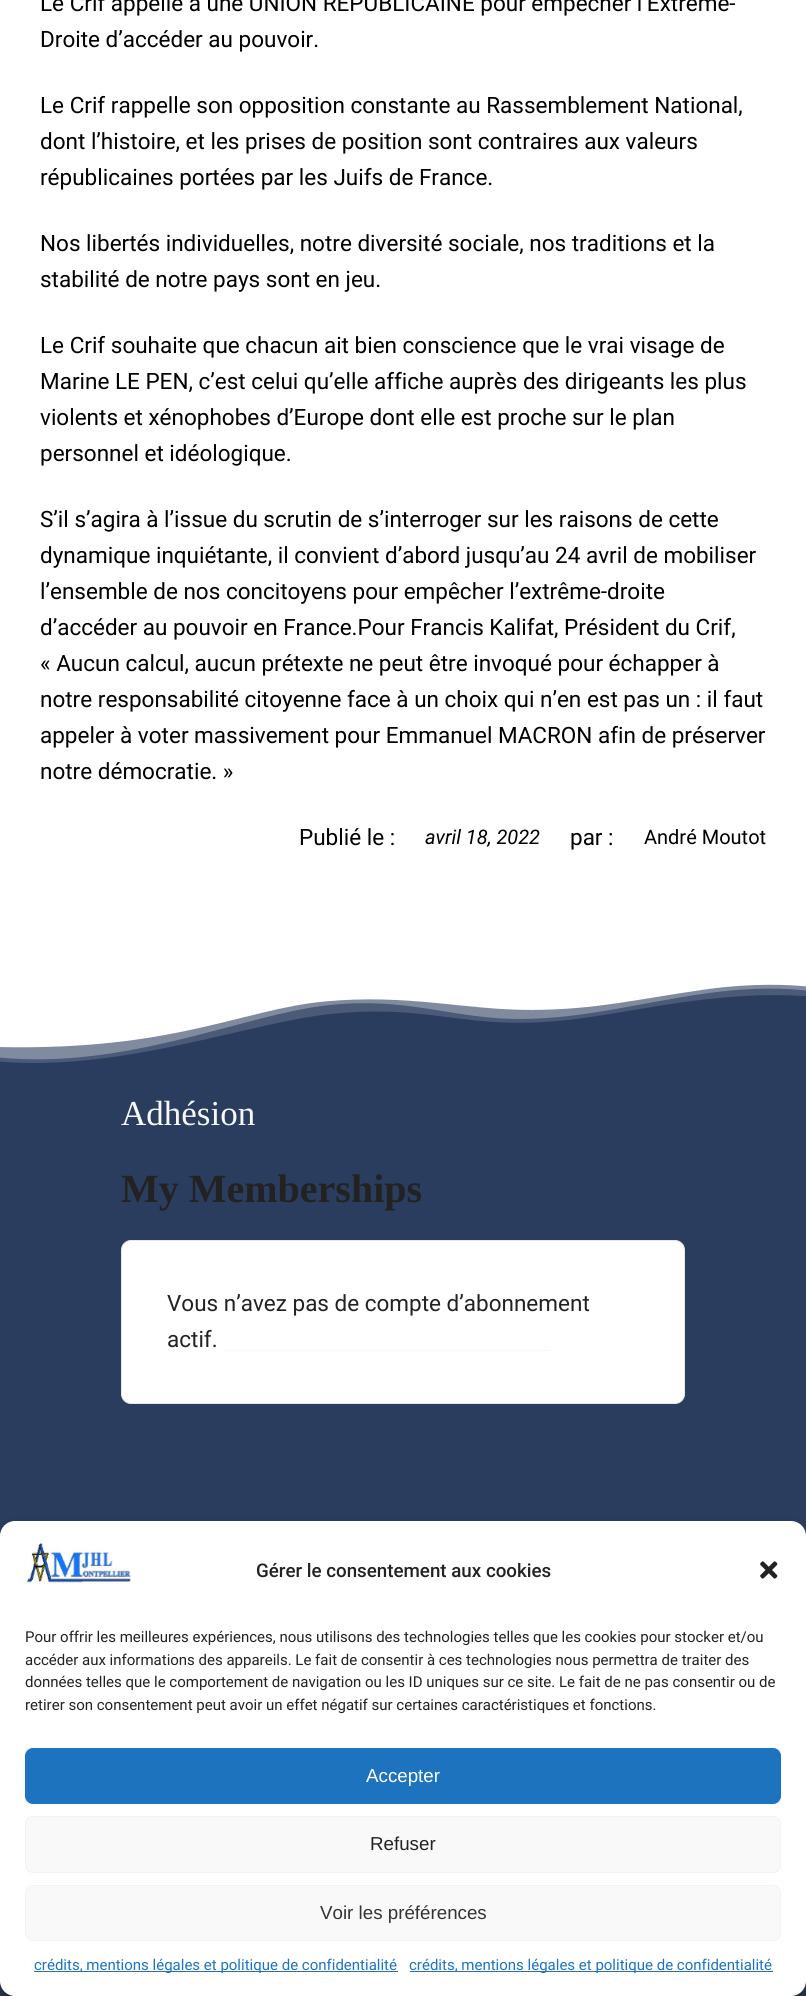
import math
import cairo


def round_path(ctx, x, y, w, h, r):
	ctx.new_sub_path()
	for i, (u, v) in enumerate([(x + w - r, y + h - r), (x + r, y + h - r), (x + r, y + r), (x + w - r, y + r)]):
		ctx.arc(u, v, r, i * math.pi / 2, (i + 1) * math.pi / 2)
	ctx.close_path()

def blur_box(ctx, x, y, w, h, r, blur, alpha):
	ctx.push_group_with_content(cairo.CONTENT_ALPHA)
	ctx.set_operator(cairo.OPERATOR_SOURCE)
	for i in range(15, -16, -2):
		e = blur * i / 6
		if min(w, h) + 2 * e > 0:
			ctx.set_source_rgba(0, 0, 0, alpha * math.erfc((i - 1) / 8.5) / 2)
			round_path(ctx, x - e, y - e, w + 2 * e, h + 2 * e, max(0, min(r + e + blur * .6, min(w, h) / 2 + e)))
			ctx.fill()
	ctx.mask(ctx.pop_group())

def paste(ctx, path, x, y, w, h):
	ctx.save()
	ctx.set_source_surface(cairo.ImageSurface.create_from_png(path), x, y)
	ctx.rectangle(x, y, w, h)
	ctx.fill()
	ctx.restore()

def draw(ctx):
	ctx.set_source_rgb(1, 1, 1)
	ctx.paint()
	ctx.select_font_face('Roboto')
	ctx.set_font_size(22.5)
	ctx.set_source_rgb(0, 0, 0)
	for x, y, s in [
		(40, 11, 'Le Crif appelle à une UNION REPUBLICAINE pour empêcher l’Extrême-'),
		(40, 47, 'Droite d’accéder au pouvoir.'),
		(40, 113, 'Le Crif rappelle son opposition constante au Rassemblement National,'),
		(40, 149, 'dont l’histoire, et les prises de position sont contraires aux valeurs'),
		(40, 185, 'républicaines portées par les Juifs de France.'),
		(40, 251, 'Nos libertés individuelles, notre diversité sociale, nos traditions et la'),
		(40, 287, 'stabilité de notre pays sont en jeu.'),
		(40, 353, 'Le Crif souhaite que chacun ait bien conscience que le vrai visage de'),
		(40, 389, 'Marine LE PEN, c’est celui qu’elle affiche auprès des dirigeants les plus'),
		(40, 425, 'violents et xénophobes d’Europe dont elle est proche sur le plan'),
		(40, 461, 'personnel et idéologique.'),
		(40, 527, 'S’il s’agira à l’issue du scrutin de s’interroger sur les raisons de cette'),
		(40, 563, 'dynamique inquiétante, il convient d’abord jusqu’au 24 avril de mobiliser'),
		(40, 599, 'l’ensemble de nos concitoyens pour empêcher l’extrême-droite'),
		(40, 635, 'd’accéder au pouvoir en France.Pour Francis Kalifat, Président du Crif,'),
		(40, 671, '« Aucun calcul, aucun prétexte ne peut être invoqué pour échapper à'),
		(40, 707, 'notre responsabilité citoyenne face à un choix qui n’en est pas un : il faut'),
		(40, 743, 'appeler à voter massivement pour Emmanuel MACRON afin de préserver'),
		(40, 779, 'notre démocratie. »'),
		(299, 845, 'Publié le :'),
	]:
		ctx.move_to(x, y)
		ctx.show_text(s)
	ctx.select_font_face('Roboto', cairo.FONT_SLANT_ITALIC)
	ctx.set_font_size(20)
	ctx.move_to(425, 844)
	ctx.show_text('avril 18, 2022')
	ctx.select_font_face('Roboto')
	ctx.set_font_size(22.5)
	ctx.move_to(570, 845)
	ctx.show_text('par :')
	ctx.set_font_size(20)
	ctx.move_to(644, 844)
	ctx.show_text('André Moutot')
	ctx.set_source_rgb(0.169, 0.239, 0.369)
	ctx.rectangle(0, 984, 806, 1012)
	ctx.fill()
	paste(ctx, 'media/1.png', 0, 980, 806, 83)
	ctx.select_font_face('Liberation Serif')
	ctx.set_font_size(35)
	ctx.set_source_rgb(0.965, 0.965, 0.965)
	ctx.move_to(121, 1125)
	ctx.show_text('Adhésion')
	ctx.select_font_face('Liberation Serif', cairo.FONT_SLANT_NORMAL, cairo.FONT_WEIGHT_BOLD)
	ctx.set_font_size(40)
	ctx.set_source_rgb(0.133, 0.133, 0.133)
	ctx.move_to(121, 1202)
	ctx.show_text('My Memberships')
	ctx.set_source_rgb(1, 1, 1)
	round_path(ctx, 121.5, 1240.5, 563, 163, 9.5)
	ctx.fill_preserve()
	ctx.set_source_rgb(0.91, 0.91, 0.91)
	ctx.set_line_width(1)
	ctx.stroke()
	ctx.select_font_face('Roboto')
	ctx.set_font_size(22.5)
	ctx.set_source_rgb(0.133, 0.133, 0.133)
	ctx.move_to(167, 1311)
	ctx.show_text('Vous n’avez pas de compte d’abonnement')
	ctx.move_to(167, 1347)
	ctx.show_text('actif.')
	ctx.set_source_rgb(0.965, 0.965, 0.965)
	ctx.rectangle(224, 1350, 326, 1)
	ctx.fill()
	ctx.set_source_rgb(0, 0, 0)
	blur_box(ctx, 0, 1529, 806, 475, 15, 4, 0.23)
	blur_box(ctx, 0, 1534, 806, 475, 15, 12.5, 0.19)
	ctx.set_source_rgb(1, 1, 1)
	round_path(ctx, 0, 1521, 806, 475, 15)
	ctx.fill()
	paste(ctx, 'media/2.png', 25, 1543, 106, 41)
	ctx.select_font_face('Roboto Medium')
	ctx.set_font_size(18.75)
	ctx.set_source_rgb(0.133, 0.133, 0.133)
	ctx.move_to(256, 1577)
	ctx.show_text('Gérer le consentement aux cookies')
	paste(ctx, 'media/3.png', 760, 1561, 18, 18)
	ctx.select_font_face('Roboto')
	ctx.set_font_size(15)
	for x, y, s in [
		(25, 1642, 'Pour offrir les meilleures expériences, nous utilisons des technologies telles que les cookies pour stocker et/ou'),
		(25, 1665, 'accéder aux informations des appareils. Le fait de consentir à ces technologies nous permettra de traiter des'),
		(25, 1687, 'données telles que le comportement de navigation ou les ID uniques sur ce site. Le fait de ne pas consentir ou de'),
		(25, 1710, 'retirer son consentement peut avoir un effet négatif sur certaines caractéristiques et fonctions.'),
	]:
		ctx.move_to(x, y)
		ctx.show_text(s)
	ctx.set_source_rgb(0.118, 0.451, 0.745)
	round_path(ctx, 25.5, 1748.5, 755, 55, 7.5)
	ctx.fill_preserve()
	ctx.stroke()
	ctx.select_font_face('Liberation Sans')
	ctx.set_font_size(18.75)
	ctx.set_source_rgb(1, 1, 1)
	ctx.move_to(366, 1782)
	ctx.show_text('Accepter')
	ctx.set_source_rgb(0.976, 0.976, 0.976)
	round_path(ctx, 25.5, 1816.5, 755, 56, 7.5)
	ctx.fill_preserve()
	ctx.set_source_rgb(0.949, 0.949, 0.949)
	ctx.stroke()
	ctx.set_source_rgb(0.133, 0.133, 0.133)
	ctx.move_to(370, 1850)
	ctx.show_text('Refuser')
	ctx.set_source_rgb(0.976, 0.976, 0.976)
	round_path(ctx, 25.5, 1885.5, 755, 55, 7.5)
	ctx.fill_preserve()
	ctx.set_source_rgb(0.949, 0.949, 0.949)
	ctx.stroke()
	ctx.set_source_rgb(0.2, 0.2, 0.2)
	ctx.move_to(320, 1919)
	ctx.show_text('Voir les préférences')
	ctx.set_source_rgb(0.118, 0.451, 0.745)
	ctx.rectangle(34, 1971, 364, 1)
	ctx.fill()
	ctx.select_font_face('Roboto')
	ctx.set_font_size(15)
	ctx.move_to(34, 1970)
	ctx.show_text('crédits, mentions légales et politique de confidentialité')
	ctx.rectangle(410, 1971, 363, 1)
	ctx.fill()
	ctx.move_to(409, 1970)
	ctx.show_text('crédits, mentions légales et politique de confidentialité')


surface = cairo.ImageSurface(cairo.FORMAT_RGB24, 806, 1996)
ctx = cairo.Context(surface)
options = cairo.FontOptions()
options.set_hint_metrics(cairo.HINT_METRICS_OFF)
options.set_hint_style(cairo.HINT_STYLE_NONE)
ctx.set_font_options(options)
ctx.set_miter_limit(4)
draw(ctx)
surface.write_to_png('image.png')
